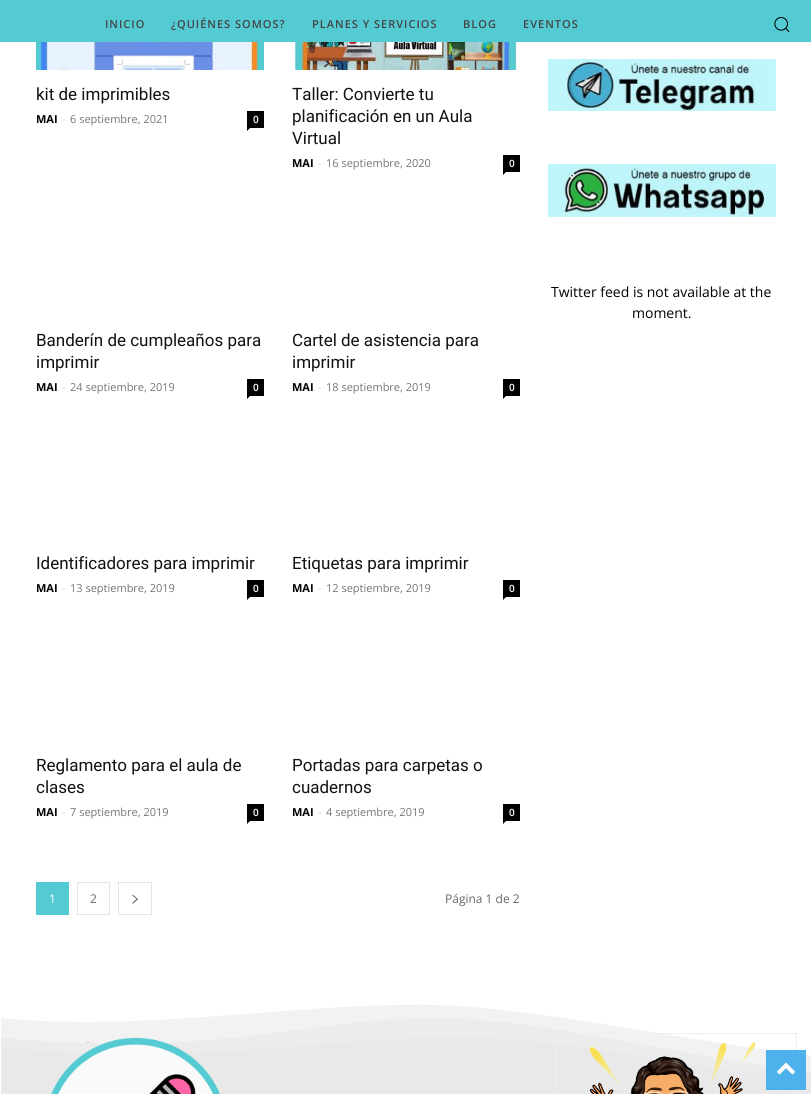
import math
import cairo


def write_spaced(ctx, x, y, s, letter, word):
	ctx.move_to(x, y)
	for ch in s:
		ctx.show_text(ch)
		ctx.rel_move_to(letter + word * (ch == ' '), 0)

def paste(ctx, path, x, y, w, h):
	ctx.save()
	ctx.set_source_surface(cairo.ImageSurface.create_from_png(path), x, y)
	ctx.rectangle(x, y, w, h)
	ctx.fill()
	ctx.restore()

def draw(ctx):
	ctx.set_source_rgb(1, 1, 1)
	ctx.paint()
	ctx.set_source_rgb(0.329, 0.796, 0.827)
	ctx.rectangle(0, 0, 811, 42)
	ctx.fill()
	ctx.select_font_face('Open Sans SemiBold')
	ctx.set_font_size(11)
	ctx.set_source_rgb(0.267, 0.267, 0.267)
	for x, y, s in [
		(105, 28, 'INICIO'),
		(171, 28, '¿QUIÉNES SOMOS?'),
		(312, 28, 'PLANES Y SERVICIOS'),
		(463, 28, 'BLOG'),
		(523, 28, 'EVENTOS'),
	]:
		write_spaced(ctx, x, y, s, 1, 0)
	paste(ctx, 'media/1.png', 774, 17, 16, 15)
	paste(ctx, 'media/2.png', 36, 42, 228, 28)
	ctx.select_font_face('Roboto')
	ctx.set_font_size(17)
	ctx.set_source_rgb(0.067, 0.067, 0.067)
	ctx.move_to(36, 100)
	ctx.show_text('kit de imprimibles')
	ctx.select_font_face('Open Sans', cairo.FONT_SLANT_NORMAL, cairo.FONT_WEIGHT_BOLD)
	ctx.set_font_size(11)
	ctx.set_source_rgb(0, 0, 0)
	ctx.move_to(36, 123)
	ctx.show_text('MAI')
	ctx.select_font_face('Open Sans')
	ctx.set_source_rgb(0.8, 0.8, 0.8)
	ctx.move_to(62, 123)
	ctx.show_text('-')
	ctx.set_source_rgb(0.463, 0.463, 0.463)
	ctx.move_to(70, 123)
	ctx.show_text('6 septiembre, 2021')
	ctx.set_source_rgb(0, 0, 0)
	ctx.rectangle(247, 111, 17, 17)
	ctx.fill()
	ctx.select_font_face('Open Sans SemiBold')
	ctx.set_font_size(10)
	ctx.set_source_rgb(1, 1, 1)
	ctx.move_to(253, 123)
	ctx.show_text('0')
	ctx.set_source_rgb(0, 0, 0)
	ctx.new_path()
	ctx.move_to(247, 128)
	ctx.line_to(250, 128)
	ctx.line_to(247, 131)
	ctx.close_path()
	ctx.fill()
	paste(ctx, 'media/3.png', 292, 42, 225, 28)
	ctx.select_font_face('Roboto')
	ctx.set_font_size(17)
	ctx.set_source_rgb(0.067, 0.067, 0.067)
	for x, y, s in [
		(292, 100, 'Taller: Convierte tu'),
		(292, 122, 'planificación en un Aula'),
		(292, 144, 'Virtual'),
	]:
		ctx.move_to(x, y)
		ctx.show_text(s)
	ctx.select_font_face('Open Sans', cairo.FONT_SLANT_NORMAL, cairo.FONT_WEIGHT_BOLD)
	ctx.set_font_size(11)
	ctx.set_source_rgb(0, 0, 0)
	ctx.move_to(292, 167)
	ctx.show_text('MAI')
	ctx.select_font_face('Open Sans')
	ctx.set_source_rgb(0.8, 0.8, 0.8)
	ctx.move_to(318, 167)
	ctx.show_text('-')
	ctx.set_source_rgb(0.463, 0.463, 0.463)
	ctx.move_to(326, 167)
	ctx.show_text('16 septiembre, 2020')
	ctx.set_source_rgb(0, 0, 0)
	ctx.rectangle(503, 155, 17, 17)
	ctx.fill()
	ctx.select_font_face('Open Sans SemiBold')
	ctx.set_font_size(10)
	ctx.set_source_rgb(1, 1, 1)
	ctx.move_to(509, 167)
	ctx.show_text('0')
	ctx.set_source_rgb(0, 0, 0)
	ctx.new_path()
	ctx.move_to(503, 172)
	ctx.line_to(506, 172)
	ctx.line_to(503, 175)
	ctx.close_path()
	ctx.fill()
	ctx.select_font_face('Roboto')
	ctx.set_font_size(17)
	ctx.set_source_rgb(0.067, 0.067, 0.067)
	ctx.move_to(36, 346)
	ctx.show_text('Banderín de cumpleaños para')
	ctx.move_to(36, 368)
	ctx.show_text('imprimir')
	ctx.select_font_face('Open Sans', cairo.FONT_SLANT_NORMAL, cairo.FONT_WEIGHT_BOLD)
	ctx.set_font_size(11)
	ctx.set_source_rgb(0, 0, 0)
	ctx.move_to(36, 391)
	ctx.show_text('MAI')
	ctx.select_font_face('Open Sans')
	ctx.set_source_rgb(0.8, 0.8, 0.8)
	ctx.move_to(62, 391)
	ctx.show_text('-')
	ctx.set_source_rgb(0.463, 0.463, 0.463)
	ctx.move_to(70, 391)
	ctx.show_text('24 septiembre, 2019')
	ctx.set_source_rgb(0, 0, 0)
	ctx.rectangle(247, 379, 17, 17)
	ctx.fill()
	ctx.select_font_face('Open Sans SemiBold')
	ctx.set_font_size(10)
	ctx.set_source_rgb(1, 1, 1)
	ctx.move_to(253, 391)
	ctx.show_text('0')
	ctx.set_source_rgb(0, 0, 0)
	ctx.new_path()
	ctx.move_to(247, 396)
	ctx.line_to(250, 396)
	ctx.line_to(247, 399)
	ctx.close_path()
	ctx.fill()
	ctx.select_font_face('Roboto')
	ctx.set_font_size(17)
	ctx.set_source_rgb(0.067, 0.067, 0.067)
	ctx.move_to(292, 346)
	ctx.show_text('Cartel de asistencia para')
	ctx.move_to(292, 368)
	ctx.show_text('imprimir')
	ctx.select_font_face('Open Sans', cairo.FONT_SLANT_NORMAL, cairo.FONT_WEIGHT_BOLD)
	ctx.set_font_size(11)
	ctx.set_source_rgb(0, 0, 0)
	ctx.move_to(292, 391)
	ctx.show_text('MAI')
	ctx.select_font_face('Open Sans')
	ctx.set_source_rgb(0.8, 0.8, 0.8)
	ctx.move_to(318, 391)
	ctx.show_text('-')
	ctx.set_source_rgb(0.463, 0.463, 0.463)
	ctx.move_to(326, 391)
	ctx.show_text('18 septiembre, 2019')
	ctx.set_source_rgb(0, 0, 0)
	ctx.rectangle(503, 379, 17, 17)
	ctx.fill()
	ctx.select_font_face('Open Sans SemiBold')
	ctx.set_font_size(10)
	ctx.set_source_rgb(1, 1, 1)
	ctx.move_to(509, 391)
	ctx.show_text('0')
	ctx.set_source_rgb(0, 0, 0)
	ctx.new_path()
	ctx.move_to(503, 396)
	ctx.line_to(506, 396)
	ctx.line_to(503, 399)
	ctx.close_path()
	ctx.fill()
	ctx.select_font_face('Roboto')
	ctx.set_font_size(17)
	ctx.set_source_rgb(0.067, 0.067, 0.067)
	ctx.move_to(36, 569)
	ctx.show_text('Identificadores para imprimir')
	ctx.select_font_face('Open Sans', cairo.FONT_SLANT_NORMAL, cairo.FONT_WEIGHT_BOLD)
	ctx.set_font_size(11)
	ctx.set_source_rgb(0, 0, 0)
	ctx.move_to(36, 592)
	ctx.show_text('MAI')
	ctx.select_font_face('Open Sans')
	ctx.set_source_rgb(0.8, 0.8, 0.8)
	ctx.move_to(62, 592)
	ctx.show_text('-')
	ctx.set_source_rgb(0.463, 0.463, 0.463)
	ctx.move_to(70, 592)
	ctx.show_text('13 septiembre, 2019')
	ctx.set_source_rgb(0, 0, 0)
	ctx.rectangle(247, 580, 17, 17)
	ctx.fill()
	ctx.select_font_face('Open Sans SemiBold')
	ctx.set_font_size(10)
	ctx.set_source_rgb(1, 1, 1)
	ctx.move_to(253, 592)
	ctx.show_text('0')
	ctx.set_source_rgb(0, 0, 0)
	ctx.new_path()
	ctx.move_to(247, 597)
	ctx.line_to(250, 597)
	ctx.line_to(247, 600)
	ctx.close_path()
	ctx.fill()
	ctx.select_font_face('Roboto')
	ctx.set_font_size(17)
	ctx.set_source_rgb(0.067, 0.067, 0.067)
	ctx.move_to(292, 569)
	ctx.show_text('Etiquetas para imprimir')
	ctx.select_font_face('Open Sans', cairo.FONT_SLANT_NORMAL, cairo.FONT_WEIGHT_BOLD)
	ctx.set_font_size(11)
	ctx.set_source_rgb(0, 0, 0)
	ctx.move_to(292, 592)
	ctx.show_text('MAI')
	ctx.select_font_face('Open Sans')
	ctx.set_source_rgb(0.8, 0.8, 0.8)
	ctx.move_to(318, 592)
	ctx.show_text('-')
	ctx.set_source_rgb(0.463, 0.463, 0.463)
	ctx.move_to(326, 592)
	ctx.show_text('12 septiembre, 2019')
	ctx.set_source_rgb(0, 0, 0)
	ctx.rectangle(503, 580, 17, 17)
	ctx.fill()
	ctx.select_font_face('Open Sans SemiBold')
	ctx.set_font_size(10)
	ctx.set_source_rgb(1, 1, 1)
	ctx.move_to(509, 592)
	ctx.show_text('0')
	ctx.set_source_rgb(0, 0, 0)
	ctx.new_path()
	ctx.move_to(503, 597)
	ctx.line_to(506, 597)
	ctx.line_to(503, 600)
	ctx.close_path()
	ctx.fill()
	ctx.select_font_face('Roboto')
	ctx.set_font_size(17)
	ctx.set_source_rgb(0.067, 0.067, 0.067)
	ctx.move_to(36, 771)
	ctx.show_text('Reglamento para el aula de')
	ctx.move_to(36, 793)
	ctx.show_text('clases')
	ctx.select_font_face('Open Sans', cairo.FONT_SLANT_NORMAL, cairo.FONT_WEIGHT_BOLD)
	ctx.set_font_size(11)
	ctx.set_source_rgb(0, 0, 0)
	ctx.move_to(36, 816)
	ctx.show_text('MAI')
	ctx.select_font_face('Open Sans')
	ctx.set_source_rgb(0.8, 0.8, 0.8)
	ctx.move_to(62, 816)
	ctx.show_text('-')
	ctx.set_source_rgb(0.463, 0.463, 0.463)
	ctx.move_to(70, 816)
	ctx.show_text('7 septiembre, 2019')
	ctx.set_source_rgb(0, 0, 0)
	ctx.rectangle(247, 804, 17, 17)
	ctx.fill()
	ctx.select_font_face('Open Sans SemiBold')
	ctx.set_font_size(10)
	ctx.set_source_rgb(1, 1, 1)
	ctx.move_to(253, 816)
	ctx.show_text('0')
	ctx.set_source_rgb(0, 0, 0)
	ctx.new_path()
	ctx.move_to(247, 821)
	ctx.line_to(250, 821)
	ctx.line_to(247, 824)
	ctx.close_path()
	ctx.fill()
	ctx.select_font_face('Roboto')
	ctx.set_font_size(17)
	ctx.set_source_rgb(0.067, 0.067, 0.067)
	ctx.move_to(292, 771)
	ctx.show_text('Portadas para carpetas o')
	ctx.move_to(292, 793)
	ctx.show_text('cuadernos')
	ctx.select_font_face('Open Sans', cairo.FONT_SLANT_NORMAL, cairo.FONT_WEIGHT_BOLD)
	ctx.set_font_size(11)
	ctx.set_source_rgb(0, 0, 0)
	ctx.move_to(292, 816)
	ctx.show_text('MAI')
	ctx.select_font_face('Open Sans')
	ctx.set_source_rgb(0.8, 0.8, 0.8)
	ctx.move_to(318, 816)
	ctx.show_text('-')
	ctx.set_source_rgb(0.463, 0.463, 0.463)
	ctx.move_to(326, 816)
	ctx.show_text('4 septiembre, 2019')
	ctx.set_source_rgb(0, 0, 0)
	ctx.rectangle(503, 804, 17, 17)
	ctx.fill()
	ctx.select_font_face('Open Sans SemiBold')
	ctx.set_font_size(10)
	ctx.set_source_rgb(1, 1, 1)
	ctx.move_to(509, 816)
	ctx.show_text('0')
	ctx.set_source_rgb(0, 0, 0)
	ctx.new_path()
	ctx.move_to(503, 821)
	ctx.line_to(506, 821)
	ctx.line_to(503, 824)
	ctx.close_path()
	ctx.fill()
	ctx.set_source_rgb(0.329, 0.796, 0.827)
	ctx.rectangle(36, 882, 33, 33)
	ctx.fill()
	ctx.select_font_face('Open Sans')
	ctx.set_font_size(12)
	ctx.set_source_rgb(1, 1, 1)
	ctx.move_to(49, 903)
	ctx.show_text('1')
	ctx.rectangle(77.5, 882.5, 32, 32)
	ctx.set_source_rgb(0.89, 0.89, 0.89)
	ctx.set_line_width(1)
	ctx.stroke()
	ctx.set_source_rgb(0.4, 0.4, 0.4)
	ctx.move_to(90, 903)
	ctx.show_text('2')
	ctx.rectangle(118.5, 882.5, 33, 32)
	ctx.set_source_rgb(0.89, 0.89, 0.89)
	ctx.stroke()
	paste(ctx, 'media/4.png', 132, 894, 6, 10)
	ctx.set_source_rgb(0.4, 0.4, 0.4)
	ctx.move_to(445, 903)
	ctx.show_text('Página 1 de 2')
	paste(ctx, 'media/5.png', 548, 59, 228, 52)
	paste(ctx, 'media/6.png', 548, 164, 228, 53)
	ctx.set_font_size(14)
	ctx.set_source_rgb(0, 0, 0)
	ctx.move_to(551, 297)
	ctx.show_text('Twitter feed is not available at the')
	ctx.move_to(632, 318)
	ctx.show_text('moment.')
	ctx.set_source_rgb(0.914, 0.914, 0.914)
	ctx.rectangle(1, 1004, 810, 90)
	ctx.fill()
	paste(ctx, 'media/7.png', 1, 999, 810, 74)
	paste(ctx, 'media/8.png', 51, 1038, 169, 56)
	ctx.rectangle(556.5, 1033.5, 240, 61)
	ctx.set_source_rgb(0.933, 0.933, 0.933)
	ctx.stroke()
	paste(ctx, 'media/9.png', 589, 1042, 193, 52)
	ctx.set_source_rgb(0.302, 0.698, 0.925)
	ctx.rectangle(766, 1050, 40, 40)
	ctx.fill()
	paste(ctx, 'media/10.png', 777, 1062, 18, 13)


surface = cairo.ImageSurface(cairo.FORMAT_RGB24, 811, 1094)
ctx = cairo.Context(surface)
options = cairo.FontOptions()
options.set_hint_metrics(cairo.HINT_METRICS_OFF)
options.set_hint_style(cairo.HINT_STYLE_NONE)
ctx.set_font_options(options)
ctx.set_miter_limit(4)
draw(ctx)
surface.write_to_png('image.png')
